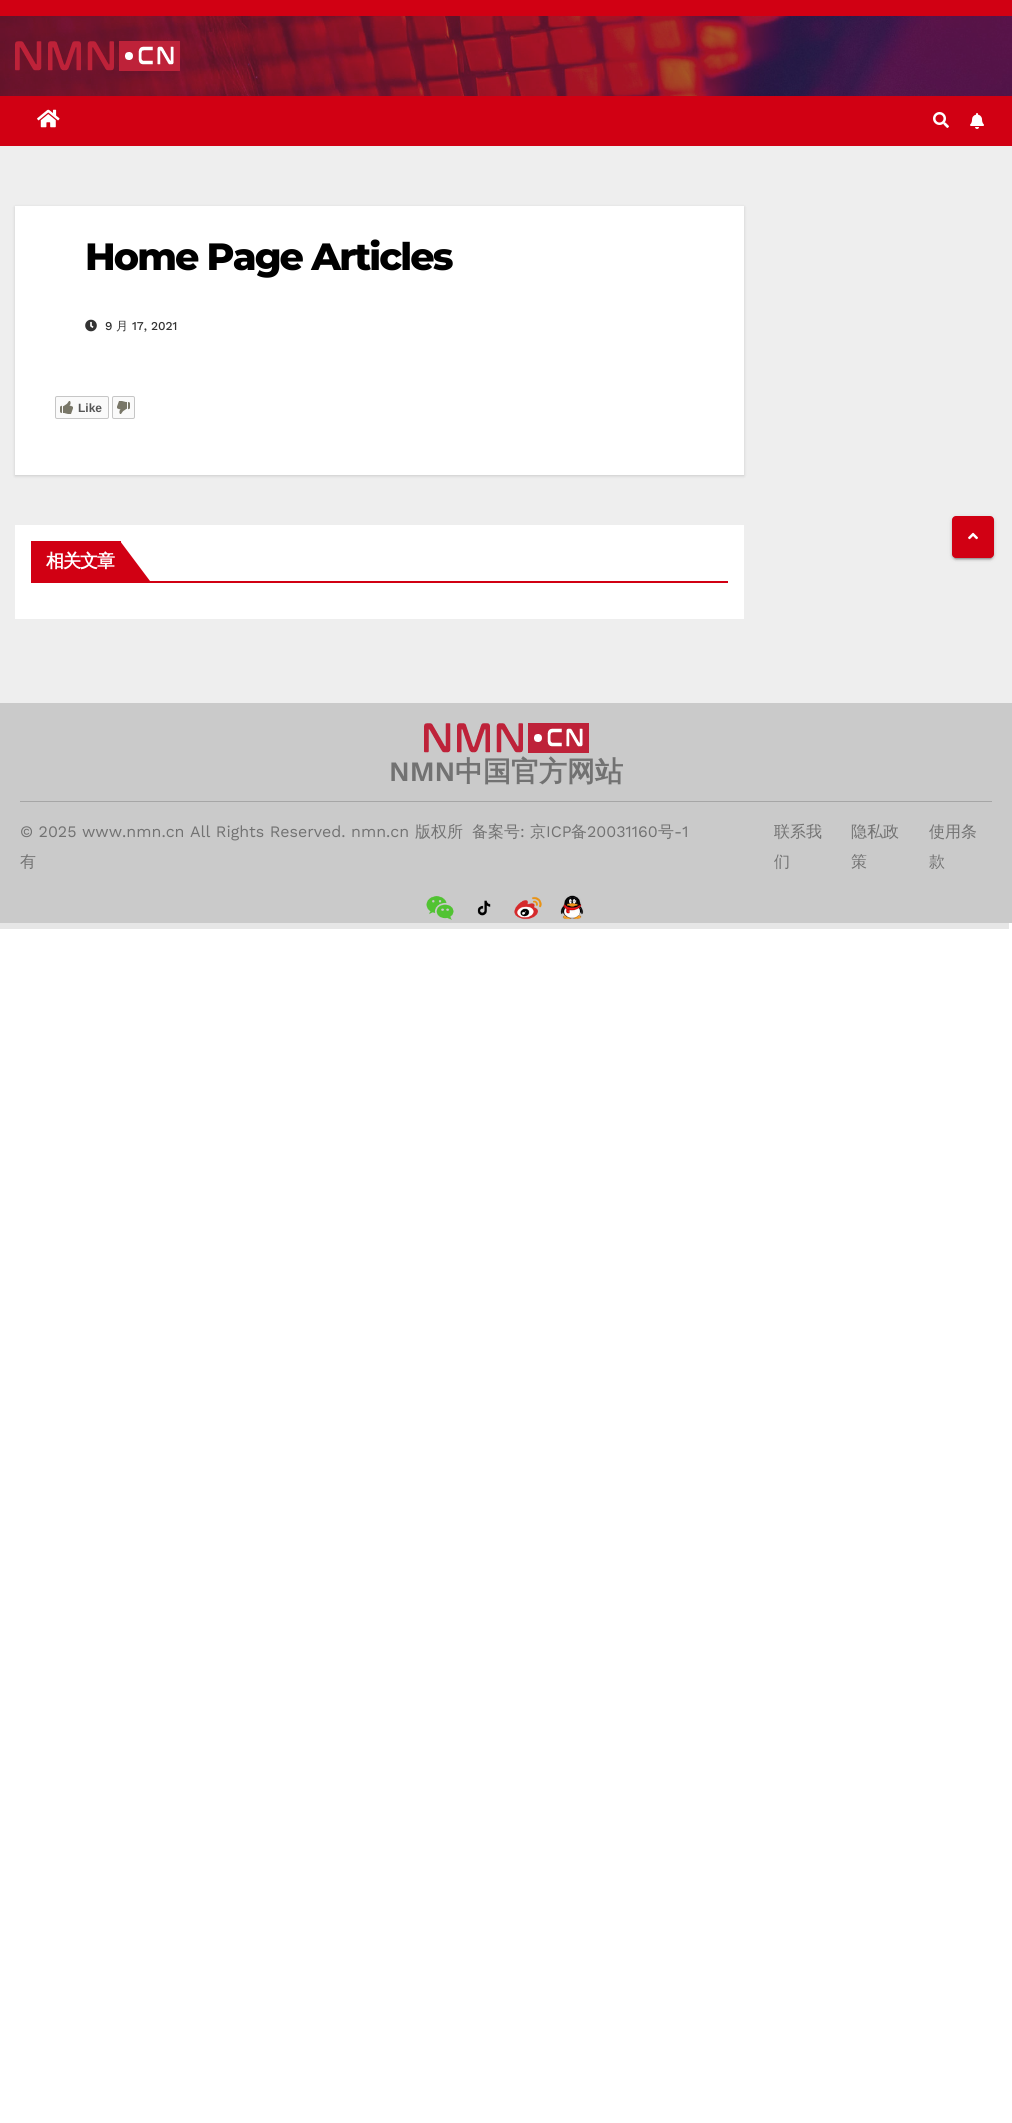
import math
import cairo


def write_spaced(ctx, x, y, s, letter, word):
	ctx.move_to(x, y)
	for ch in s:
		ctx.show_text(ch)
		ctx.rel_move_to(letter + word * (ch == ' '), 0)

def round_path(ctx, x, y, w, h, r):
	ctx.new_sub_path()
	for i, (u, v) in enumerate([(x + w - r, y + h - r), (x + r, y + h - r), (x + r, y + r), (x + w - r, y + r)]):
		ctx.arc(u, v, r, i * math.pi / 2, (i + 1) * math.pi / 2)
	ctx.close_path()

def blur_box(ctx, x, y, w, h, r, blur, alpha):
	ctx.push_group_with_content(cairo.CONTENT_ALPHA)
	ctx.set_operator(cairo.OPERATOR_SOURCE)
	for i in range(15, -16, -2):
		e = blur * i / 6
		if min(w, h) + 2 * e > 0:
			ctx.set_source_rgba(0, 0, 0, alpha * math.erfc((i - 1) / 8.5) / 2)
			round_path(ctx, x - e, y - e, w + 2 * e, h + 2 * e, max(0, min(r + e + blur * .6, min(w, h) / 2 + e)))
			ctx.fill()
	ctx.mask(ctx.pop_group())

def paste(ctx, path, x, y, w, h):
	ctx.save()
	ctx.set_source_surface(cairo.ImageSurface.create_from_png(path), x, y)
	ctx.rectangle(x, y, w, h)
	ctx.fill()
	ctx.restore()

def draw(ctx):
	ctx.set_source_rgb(1, 1, 1)
	ctx.paint()
	ctx.set_source_rgb(0.933, 0.933, 0.933)
	ctx.rectangle(0, 146, 1012, 557)
	ctx.fill()
	ctx.set_source_rgb(0.82, 0, 0.078)
	ctx.rectangle(0, 0, 1012, 16)
	ctx.fill()
	paste(ctx, 'media/1.png', 0, 16, 1012, 80)
	paste(ctx, 'media/2.png', 15, 41, 165, 30)
	ctx.rectangle(0, 96, 1012, 50)
	ctx.fill()
	paste(ctx, 'media/3.png', 37, 109, 23, 19)
	paste(ctx, 'media/4.png', 933, 112, 16, 16)
	paste(ctx, 'media/5.png', 970, 113, 14, 16)
	ctx.set_source_rgb(0, 0, 0)
	blur_box(ctx, 15, 207, 729, 269, 0, 1.5, 0.15)
	ctx.set_source_rgb(1, 1, 1)
	ctx.rectangle(15, 206, 729, 269)
	ctx.fill()
	ctx.select_font_face('Montserrat ExtraBold')
	ctx.set_font_size(38)
	ctx.set_source_rgb(0, 0, 0)
	write_spaced(ctx, 85, 270, 'Home Page Articles', -1.9, 0)
	paste(ctx, 'media/6.png', 85, 319, 12, 13)
	ctx.select_font_face('Work Sans Medium')
	ctx.set_font_size(12)
	ctx.set_source_rgb(0.2, 0.2, 0.2)
	ctx.move_to(105, 330)
	ctx.show_text('9')
	ctx.select_font_face('WenQuanYi Zen Hei Medium')
	ctx.move_to(116, 330)
	ctx.show_text('月')
	ctx.select_font_face('Work Sans Medium')
	ctx.move_to(132, 330)
	ctx.show_text('17, 2021')
	ctx.set_source_rgb(0.98, 0.98, 0.98)
	round_path(ctx, 55.5, 396.5, 53, 22, 1.5)
	ctx.fill_preserve()
	ctx.set_source_rgb(0.776, 0.776, 0.776)
	ctx.set_line_width(1)
	ctx.stroke()
	paste(ctx, 'media/7.png', 60, 401, 13, 13)
	ctx.select_font_face('Liberation Sans', cairo.FONT_SLANT_NORMAL, cairo.FONT_WEIGHT_BOLD)
	ctx.set_source_rgb(0.333, 0.333, 0.333)
	ctx.move_to(78, 412)
	ctx.show_text('Like')
	ctx.set_source_rgb(0.98, 0.98, 0.98)
	round_path(ctx, 112.5, 396.5, 22, 22, 1.5)
	ctx.fill_preserve()
	ctx.set_source_rgb(0.776, 0.776, 0.776)
	ctx.stroke()
	paste(ctx, 'media/8.png', 117, 401, 13, 13)
	ctx.set_source_rgb(1, 1, 1)
	ctx.rectangle(15, 525, 729, 94)
	ctx.fill()
	ctx.set_source_rgb(0.82, 0, 0.078)
	ctx.rectangle(31, 581, 697, 2)
	ctx.rectangle(31, 541, 90, 40)
	ctx.fill()
	ctx.select_font_face('WenQuanYi Zen Hei', cairo.FONT_SLANT_NORMAL, cairo.FONT_WEIGHT_BOLD)
	ctx.set_font_size(18)
	ctx.set_source_rgb(1, 1, 1)
	write_spaced(ctx, 46, 567, '相关文章', -1, 0)
	ctx.set_source_rgb(0.82, 0, 0.078)
	ctx.new_path()
	ctx.move_to(120, 581)
	ctx.line_to(120, 541)
	ctx.line_to(150, 581)
	ctx.close_path()
	ctx.fill()
	ctx.set_source_rgb(0, 0, 0)
	blur_box(ctx, 952, 517, 42, 42, 4, 2.5, 0.12)
	blur_box(ctx, 954, 521, 38, 38, 2, 0.5, 0.2)
	blur_box(ctx, 952, 518, 42, 42, 4, 1, 0.14)
	ctx.set_source_rgb(0.82, 0, 0.078)
	round_path(ctx, 952, 516, 42, 42, 4)
	ctx.fill()
	paste(ctx, 'media/9.png', 968, 532, 10, 8)
	ctx.set_source_rgb(0.902, 0.902, 0.902)
	ctx.new_path()
	ctx.move_to(-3, 709)
	ctx.line_to(-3, 929)
	ctx.line_to(1009, 929)
	ctx.line_to(1009, 923)
	ctx.line_to(0, 923)
	ctx.line_to(0, 709)
	ctx.close_path()
	ctx.fill()
	ctx.set_source_rgb(0.792, 0.792, 0.792)
	ctx.rectangle(0, 703, 1012, 220)
	ctx.fill()
	ctx.set_source_rgb(0.651, 0.651, 0.651)
	ctx.rectangle(20, 801, 972, 1)
	ctx.fill()
	paste(ctx, 'media/10.png', 424, 723, 165, 30)
	ctx.select_font_face('Work Sans SemiBold')
	ctx.set_font_size(28)
	ctx.set_source_rgb(0.447, 0.447, 0.447)
	ctx.move_to(389, 781)
	ctx.show_text('NMN')
	ctx.select_font_face('WenQuanYi Zen Hei', cairo.FONT_SLANT_NORMAL, cairo.FONT_WEIGHT_BOLD)
	ctx.move_to(455, 781)
	ctx.show_text('中国官方网站')
	ctx.select_font_face('Work Sans')
	ctx.set_font_size(16)
	ctx.move_to(20, 837)
	ctx.show_text('© 2025 www.nmn.cn All Rights Reserved. nmn.cn')
	ctx.select_font_face('WenQuanYi Zen Hei Medium')
	for x, y, s in [
		(415, 837, '版权所'),
		(20, 867, '有'),
		(472, 837, '备案号'),
	]:
		ctx.move_to(x, y)
		ctx.show_text(s)
	ctx.select_font_face('Work Sans')
	ctx.move_to(520, 837)
	ctx.show_text(':')
	ctx.select_font_face('WenQuanYi Zen Hei Medium')
	ctx.move_to(530, 837)
	ctx.show_text('京')
	ctx.select_font_face('Work Sans')
	ctx.move_to(546, 837)
	ctx.show_text('ICP')
	ctx.select_font_face('WenQuanYi Zen Hei Medium')
	ctx.move_to(571, 837)
	ctx.show_text('备')
	ctx.select_font_face('Work Sans')
	ctx.move_to(587, 837)
	ctx.show_text('20031160')
	ctx.select_font_face('WenQuanYi Zen Hei Medium')
	ctx.move_to(658, 837)
	ctx.show_text('号')
	ctx.select_font_face('Work Sans')
	ctx.move_to(674, 837)
	ctx.show_text('-1')
	ctx.select_font_face('WenQuanYi Zen Hei Medium')
	for x, y, s in [
		(774, 837, '联系我'),
		(774, 867, '们'),
		(851, 837, '隐私政'),
		(851, 867, '策'),
		(929, 837, '使用条'),
		(929, 867, '款'),
	]:
		ctx.move_to(x, y)
		ctx.show_text(s)
	paste(ctx, 'media/11.png', 426, 896, 28, 24)
	paste(ctx, 'media/12.png', 477, 900, 14, 16)
	paste(ctx, 'media/13.png', 514, 896, 28, 24)
	paste(ctx, 'media/14.png', 560, 895, 24, 25)


surface = cairo.ImageSurface(cairo.FORMAT_RGB24, 1012, 2123)
ctx = cairo.Context(surface)
options = cairo.FontOptions()
options.set_hint_metrics(cairo.HINT_METRICS_OFF)
options.set_hint_style(cairo.HINT_STYLE_NONE)
ctx.set_font_options(options)
ctx.set_miter_limit(4)
draw(ctx)
surface.write_to_png('image.png')
